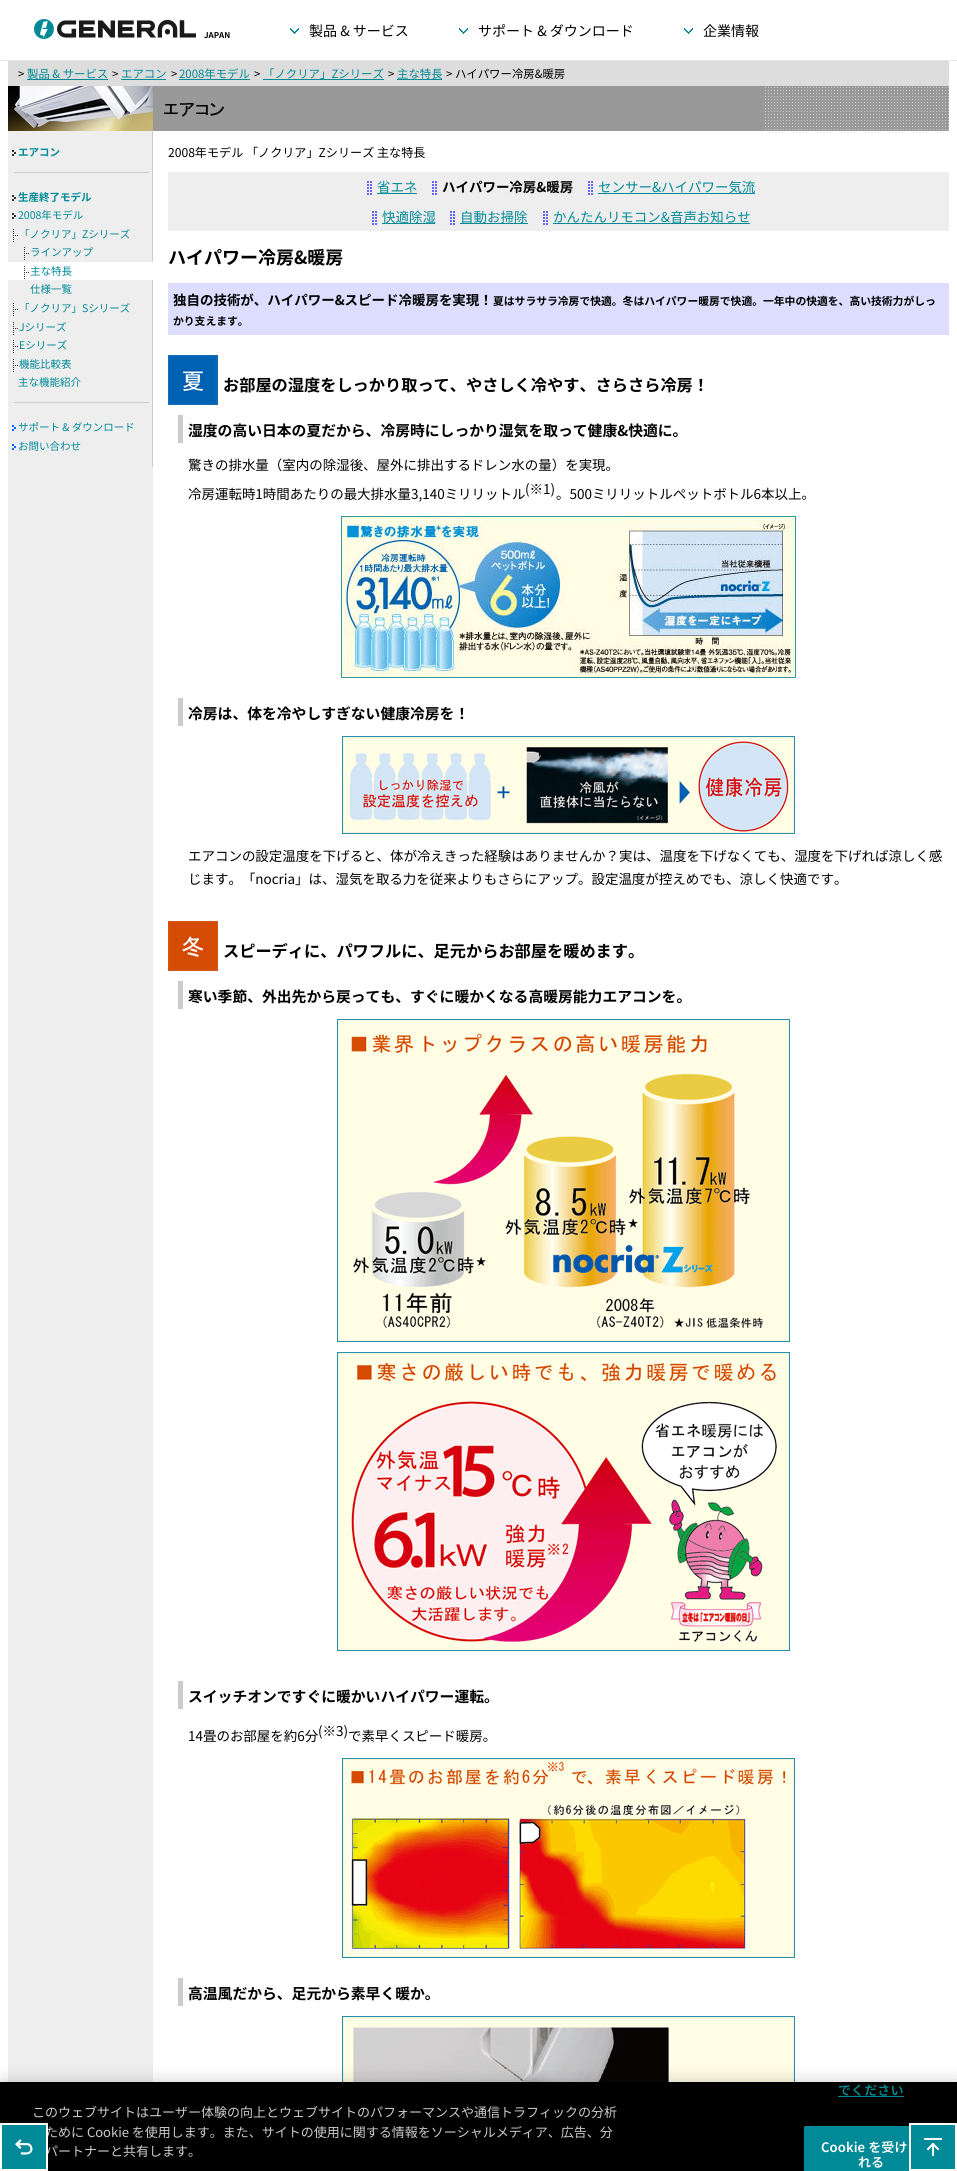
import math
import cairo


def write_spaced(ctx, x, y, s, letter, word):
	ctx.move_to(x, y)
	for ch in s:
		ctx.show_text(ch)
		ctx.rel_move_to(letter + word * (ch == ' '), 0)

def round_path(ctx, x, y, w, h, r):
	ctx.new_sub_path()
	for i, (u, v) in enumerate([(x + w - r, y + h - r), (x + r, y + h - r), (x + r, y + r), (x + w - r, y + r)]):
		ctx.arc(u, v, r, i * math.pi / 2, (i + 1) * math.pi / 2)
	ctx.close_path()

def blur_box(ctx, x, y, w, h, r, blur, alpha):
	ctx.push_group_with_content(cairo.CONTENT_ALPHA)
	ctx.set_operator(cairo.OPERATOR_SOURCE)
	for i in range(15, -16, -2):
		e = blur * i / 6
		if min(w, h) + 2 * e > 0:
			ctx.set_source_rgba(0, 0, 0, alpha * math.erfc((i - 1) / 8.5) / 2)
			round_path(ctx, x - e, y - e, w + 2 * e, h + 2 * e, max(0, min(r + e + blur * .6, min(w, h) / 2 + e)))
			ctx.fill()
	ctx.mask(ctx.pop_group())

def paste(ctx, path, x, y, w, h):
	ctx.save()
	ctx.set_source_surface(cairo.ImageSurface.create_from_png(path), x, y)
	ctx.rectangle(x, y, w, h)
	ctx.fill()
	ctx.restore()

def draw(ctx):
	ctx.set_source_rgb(1, 1, 1)
	ctx.paint()
	ctx.set_source_rgb(0.906, 0.906, 0.906)
	ctx.rectangle(0, 60, 957, 1)
	ctx.fill()
	paste(ctx, 'media/1.png', 34, 19, 162, 20)
	ctx.select_font_face('Noto Sans JP', cairo.FONT_SLANT_NORMAL, cairo.FONT_WEIGHT_BOLD)
	ctx.set_font_size(8)
	ctx.set_source_rgb(0, 0, 0)
	ctx.move_to(204, 38)
	ctx.show_text('JAPAN')
	paste(ctx, 'media/2.png', 290, 28, 9, 6)
	ctx.select_font_face('Noto Sans JP')
	ctx.set_font_size(14)
	ctx.move_to(309, 36)
	ctx.show_text('製品 & サービス')
	paste(ctx, 'media/2.png', 459, 28, 9, 6)
	ctx.move_to(478, 36)
	ctx.show_text('サポート & ダウンロード')
	paste(ctx, 'media/2.png', 684, 28, 9, 6)
	ctx.move_to(703, 36)
	ctx.show_text('企業情報')
	ctx.set_source_rgb(0.867, 0.867, 0.867)
	ctx.rectangle(8, 61, 941, 25)
	ctx.fill()
	ctx.set_font_size(11.4)
	ctx.set_source_rgb(0, 0, 0)
	ctx.move_to(18, 78)
	ctx.show_text('>')
	ctx.set_source_rgb(0, 0.537, 0.588)
	ctx.move_to(27, 78)
	ctx.show_text('製品 & サービス')
	ctx.rectangle(27, 79, 81, 1)
	ctx.fill()
	ctx.set_source_rgb(0, 0, 0)
	ctx.move_to(112, 78)
	ctx.show_text('>')
	ctx.set_source_rgb(0, 0.537, 0.588)
	ctx.move_to(121, 78)
	ctx.show_text('エアコン')
	ctx.rectangle(121, 79, 45, 1)
	ctx.fill()
	ctx.set_source_rgb(0, 0, 0)
	ctx.move_to(171, 78)
	ctx.show_text('>')
	ctx.set_source_rgb(0, 0.537, 0.588)
	ctx.move_to(179, 78)
	ctx.show_text('2008年モデル')
	ctx.rectangle(179, 79, 71, 1)
	ctx.fill()
	ctx.set_source_rgb(0, 0, 0)
	ctx.move_to(254, 78)
	ctx.show_text('>')
	ctx.set_source_rgb(0, 0.537, 0.588)
	ctx.move_to(263, 78)
	ctx.show_text('「ノクリア」Zシリーズ')
	ctx.rectangle(263, 79, 121, 1)
	ctx.fill()
	ctx.set_source_rgb(0, 0, 0)
	ctx.move_to(388, 78)
	ctx.show_text('>')
	ctx.set_source_rgb(0, 0.537, 0.588)
	ctx.move_to(397, 78)
	ctx.show_text('主な特長')
	ctx.rectangle(397, 79, 45, 1)
	ctx.fill()
	ctx.set_source_rgb(0, 0, 0)
	ctx.move_to(446, 78)
	ctx.show_text('> ハイパワー冷房&暖房')
	ctx.set_source_rgb(0.6, 0.6, 0.6)
	ctx.rectangle(153, 86, 796, 45)
	ctx.fill()
	paste(ctx, 'media/3.png', 8, 86, 145, 45)
	paste(ctx, 'media/4.png', 164, 102, 60, 15)
	paste(ctx, 'media/5.png', 920, 87, 29, 43)
	paste(ctx, 'media/6.png', 765, 87, 155, 43)
	ctx.set_source_rgb(0.933, 0.933, 0.933)
	ctx.rectangle(8, 131, 145, 1951)
	ctx.fill()
	ctx.set_source_rgb(0.8, 0.8, 0.8)
	ctx.rectangle(152, 131, 1, 336)
	ctx.fill()
	paste(ctx, 'media/7.png', 12, 150, 4, 6)
	ctx.select_font_face('Noto Sans JP', cairo.FONT_SLANT_NORMAL, cairo.FONT_WEIGHT_BOLD)
	ctx.set_font_size(10.5)
	ctx.set_source_rgb(0, 0.537, 0.588)
	ctx.move_to(18, 156)
	ctx.show_text('エアコン')
	ctx.set_source_rgb(0.8, 0.8, 0.8)
	ctx.rectangle(14, 172, 135, 1)
	ctx.fill()
	paste(ctx, 'media/7.png', 12, 195, 4, 6)
	ctx.set_source_rgb(0, 0.537, 0.588)
	ctx.move_to(18, 201)
	ctx.show_text('生産終了モデル')
	paste(ctx, 'media/7.png', 12, 213, 4, 6)
	ctx.select_font_face('Noto Sans JP')
	ctx.move_to(18, 219)
	ctx.show_text('2008年モデル')
	paste(ctx, 'media/8.png', 13, 229, 5, 13)
	ctx.move_to(19, 238)
	ctx.show_text('「ノクリア」Zシリーズ')
	paste(ctx, 'media/8.png', 24, 247, 5, 13)
	ctx.move_to(30, 256)
	ctx.show_text('ラインアップ')
	ctx.set_source_rgb(1, 1, 1)
	ctx.rectangle(8, 262, 145, 18)
	ctx.fill()
	paste(ctx, 'media/9.png', 24, 266, 5, 13)
	ctx.set_source_rgb(0, 0.537, 0.588)
	ctx.move_to(30, 275)
	ctx.show_text('主な特長')
	ctx.move_to(30, 293)
	ctx.show_text('仕様一覧')
	paste(ctx, 'media/8.png', 13, 303, 5, 13)
	ctx.move_to(19, 312)
	ctx.show_text('「ノクリア」Sシリーズ')
	paste(ctx, 'media/8.png', 13, 322, 5, 13)
	ctx.move_to(19, 331)
	ctx.show_text('Jシリーズ')
	paste(ctx, 'media/8.png', 13, 340, 5, 13)
	ctx.move_to(19, 349)
	ctx.show_text('Eシリーズ')
	paste(ctx, 'media/8.png', 13, 359, 5, 13)
	ctx.move_to(19, 368)
	ctx.show_text('機能比較表')
	ctx.move_to(18, 386)
	ctx.show_text('主な機能紹介')
	ctx.set_source_rgb(0.8, 0.8, 0.8)
	ctx.rectangle(14, 402, 135, 1)
	ctx.fill()
	paste(ctx, 'media/10.png', 12, 425, 4, 6)
	ctx.set_source_rgb(0, 0.537, 0.588)
	ctx.move_to(18, 431)
	ctx.show_text('サポート & ダウンロード')
	paste(ctx, 'media/10.png', 12, 444, 4, 6)
	ctx.move_to(18, 450)
	ctx.show_text('お問い合わせ')
	ctx.set_font_size(12.1)
	ctx.set_source_rgb(0, 0, 0)
	ctx.move_to(168, 157)
	ctx.show_text('2008年モデル 「ノクリア」Zシリーズ 主な特長')
	ctx.set_source_rgb(0.933, 0.933, 0.933)
	ctx.rectangle(168, 172, 781, 59)
	ctx.fill()
	paste(ctx, 'media/11.png', 367, 181, 5, 14)
	ctx.set_source_rgb(0, 0.537, 0.588)
	ctx.rectangle(377, 193, 40, 1)
	ctx.fill()
	ctx.set_font_size(13.47)
	ctx.move_to(377, 192)
	ctx.show_text('省エネ')
	paste(ctx, 'media/11.png', 432, 181, 5, 14)
	ctx.select_font_face('Noto Sans JP', cairo.FONT_SLANT_NORMAL, cairo.FONT_WEIGHT_BOLD)
	ctx.set_source_rgb(0, 0, 0)
	ctx.move_to(442, 192)
	ctx.show_text('ハイパワー冷房&暖房')
	paste(ctx, 'media/11.png', 588, 181, 5, 14)
	ctx.set_source_rgb(0, 0.537, 0.588)
	ctx.rectangle(598, 193, 157, 1)
	ctx.fill()
	ctx.select_font_face('Noto Sans JP')
	ctx.move_to(598, 192)
	ctx.show_text('センサー&ハイパワー気流')
	paste(ctx, 'media/11.png', 372, 211, 5, 14)
	ctx.rectangle(382, 223, 53, 1)
	ctx.fill()
	ctx.move_to(382, 222)
	ctx.show_text('快適除湿')
	paste(ctx, 'media/11.png', 450, 211, 5, 14)
	ctx.rectangle(460, 223, 68, 1)
	ctx.fill()
	ctx.move_to(460, 222)
	ctx.show_text('自動お掃除')
	paste(ctx, 'media/11.png', 543, 211, 5, 14)
	ctx.rectangle(553, 223, 197, 1)
	ctx.fill()
	ctx.move_to(553, 222)
	ctx.show_text('かんたんリモコン&音声お知らせ')
	ctx.select_font_face('Noto Sans JP', cairo.FONT_SLANT_NORMAL, cairo.FONT_WEIGHT_BOLD)
	ctx.set_font_size(18)
	ctx.set_source_rgb(0, 0, 0)
	ctx.move_to(168, 264)
	ctx.show_text('ハイパワー冷房&暖房')
	ctx.set_source_rgb(0.867, 0.867, 1)
	ctx.rectangle(168, 283, 781, 52)
	ctx.fill()
	ctx.set_font_size(13.47)
	ctx.set_source_rgb(0, 0, 0)
	ctx.move_to(173, 305)
	ctx.show_text('独自の技術が、ハイパワー&スピード冷暖房を実現！')
	ctx.set_font_size(10.8)
	ctx.move_to(493, 305)
	ctx.show_text('夏はサラサラ冷房で快適。冬はハイパワー暖房で快適。一年中の快適を、高い技術力がしっ')
	ctx.move_to(173, 325)
	ctx.show_text('かり支えます。')
	paste(ctx, 'media/12.png', 168, 355, 50, 50)
	ctx.set_font_size(16.2)
	ctx.move_to(223, 391)
	ctx.show_text('お部屋の湿度をしっかり取って、やさしく冷やす、さらさら冷房！')
	ctx.set_source_rgb(0.8, 0.8, 0.8)
	ctx.rectangle(178, 415, 5, 28)
	ctx.fill()
	ctx.set_font_size(14.8)
	ctx.set_source_rgb(0, 0, 0)
	ctx.move_to(188, 436)
	ctx.show_text('湿度の高い日本の夏だから、冷房時にしっかり湿気を取って健康&快適に。')
	ctx.select_font_face('Noto Sans JP')
	ctx.set_font_size(13.47)
	for x, y, s in [
		(188, 470, '驚きの排水量（室内の除湿後、屋外に排出するドレン水の量）を実現。'),
		(188, 499, '冷房運転時1時間あたりの最大排水量3,140ミリリットル'),
		(525, 494, '(※1)'),
		(556, 499, '。500ミリリットルペットボトル6本以上。'),
	]:
		ctx.move_to(x, y)
		ctx.show_text(s)
	paste(ctx, 'media/13.png', 341, 516, 455, 162)
	ctx.set_source_rgb(0.8, 0.8, 0.8)
	ctx.rectangle(178, 698, 5, 28)
	ctx.fill()
	ctx.select_font_face('Noto Sans JP', cairo.FONT_SLANT_NORMAL, cairo.FONT_WEIGHT_BOLD)
	ctx.set_font_size(14.8)
	ctx.set_source_rgb(0, 0, 0)
	ctx.move_to(188, 719)
	ctx.show_text('冷房は、体を冷やしすぎない健康冷房を！')
	paste(ctx, 'media/14.png', 342, 736, 453, 98)
	ctx.select_font_face('Noto Sans JP')
	ctx.set_font_size(13.47)
	ctx.move_to(188, 861)
	ctx.show_text('エアコンの設定温度を下げると、体が冷えきった経験はありませんか？実は、温度を下げなくても、湿度を下げれば涼しく感')
	ctx.move_to(188, 884)
	ctx.show_text('じます。「nocria」は、湿気を取る力を従来よりもさらにアップ。設定温度が控えめでも、涼しく快適です。')
	paste(ctx, 'media/15.png', 168, 921, 50, 50)
	ctx.select_font_face('Noto Sans JP', cairo.FONT_SLANT_NORMAL, cairo.FONT_WEIGHT_BOLD)
	ctx.set_font_size(16.2)
	ctx.move_to(223, 957)
	ctx.show_text('スピーディに、パワフルに、足元からお部屋を暖めます。')
	ctx.set_source_rgb(0.8, 0.8, 0.8)
	ctx.rectangle(178, 981, 5, 28)
	ctx.fill()
	ctx.set_font_size(14.8)
	ctx.set_source_rgb(0, 0, 0)
	ctx.move_to(188, 1002)
	ctx.show_text('寒い季節、外出先から戻っても、すぐに暖かくなる高暖房能力エアコンを。')
	paste(ctx, 'media/16.png', 337, 1019, 453, 323)
	paste(ctx, 'media/17.png', 337, 1352, 453, 299)
	ctx.set_source_rgb(0.8, 0.8, 0.8)
	ctx.rectangle(178, 1681, 5, 28)
	ctx.fill()
	ctx.set_source_rgb(0, 0, 0)
	ctx.move_to(188, 1702)
	ctx.show_text('スイッチオンですぐに暖かいハイパワー運転。')
	ctx.select_font_face('Noto Sans JP')
	ctx.set_font_size(13.47)
	for x, y, s in [
		(188, 1741, '14畳のお部屋を約6分'),
		(318, 1736, '(※3)'),
		(348, 1741, 'で素早くスピード暖房。'),
	]:
		ctx.move_to(x, y)
		ctx.show_text(s)
	paste(ctx, 'media/18.png', 342, 1758, 453, 200)
	ctx.set_source_rgb(0.8, 0.8, 0.8)
	ctx.rectangle(178, 1978, 5, 28)
	ctx.fill()
	ctx.select_font_face('Noto Sans JP', cairo.FONT_SLANT_NORMAL, cairo.FONT_WEIGHT_BOLD)
	ctx.set_font_size(14.8)
	ctx.set_source_rgb(0, 0, 0)
	ctx.move_to(188, 1999)
	ctx.show_text('高温風だから、足元から素早く暖か。')
	paste(ctx, 'media/19.png', 342, 2016, 453, 66)
	ctx.set_source_rgb(0, 0, 0)
	blur_box(ctx, 0, 2082, 957, 89, 0, 9, 0.2)
	ctx.set_source_rgb(0, 0, 0)
	ctx.rectangle(0, 2082, 957, 89)
	ctx.fill()
	ctx.select_font_face('Noto Sans JP')
	ctx.set_font_size(13)
	ctx.set_source_rgb(0.8, 0.8, 0.8)
	for x, y, s in [
		(32, 2117, 'このウェブサイトはユーザー体験の向上とウェブサイトのパフォーマンスや通信トラフィックの分析'),
		(45, 2137, 'ために Cookie を使用します。また、サイトの使用に関する情報をソーシャルメディア、広告、分'),
		(45, 2156, 'パートナーと共有します。'),
	]:
		ctx.move_to(x, y)
		ctx.show_text(s)
	ctx.select_font_face('Noto Sans JP SemiBold')
	ctx.set_source_rgb(0, 0.537, 0.588)
	write_spaced(ctx, 838, 2095, 'でください', 0.1, 0)
	ctx.rectangle(838, 2096, 66, 1)
	ctx.fill()
	ctx.new_path()
	ctx.move_to(806, 2126)
	ctx.line_to(936, 2126)
	ctx.curve_to(937, 2126, 938, 2127, 938, 2128)
	ctx.line_to(938, 2171)
	ctx.line_to(804, 2171)
	ctx.line_to(804, 2128)
	ctx.curve_to(804, 2127, 805, 2126, 806, 2126)
	ctx.close_path()
	ctx.fill()
	round_path(ctx, 804.5, 2126.5, 133, 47, 1.5)
	ctx.set_line_width(1)
	ctx.stroke()
	ctx.set_source_rgb(1, 1, 1)
	write_spaced(ctx, 821, 2152, 'Cookie を受け', 0.1, 0)
	write_spaced(ctx, 858, 2167, 'れる', 0.1, 0)
	ctx.set_source_rgb(0, 0.537, 0.588)
	ctx.rectangle(2, 2125, 44, 44)
	ctx.fill()
	paste(ctx, 'media/20.png', 15, 2139, 18, 16)
	ctx.rectangle(1, 2124, 46, 46)
	ctx.set_source_rgb(1, 1, 1)
	ctx.set_line_width(2)
	ctx.stroke()
	ctx.set_source_rgb(0, 0.537, 0.588)
	ctx.rectangle(911, 2125, 44, 44)
	ctx.fill()
	paste(ctx, 'media/21.png', 924, 2138, 18, 18)
	ctx.rectangle(910, 2124, 46, 46)
	ctx.set_source_rgb(1, 1, 1)
	ctx.stroke()


surface = cairo.ImageSurface(cairo.FORMAT_RGB24, 957, 2171)
ctx = cairo.Context(surface)
options = cairo.FontOptions()
options.set_hint_metrics(cairo.HINT_METRICS_OFF)
options.set_hint_style(cairo.HINT_STYLE_NONE)
ctx.set_font_options(options)
ctx.set_miter_limit(4)
draw(ctx)
surface.write_to_png('image.png')
